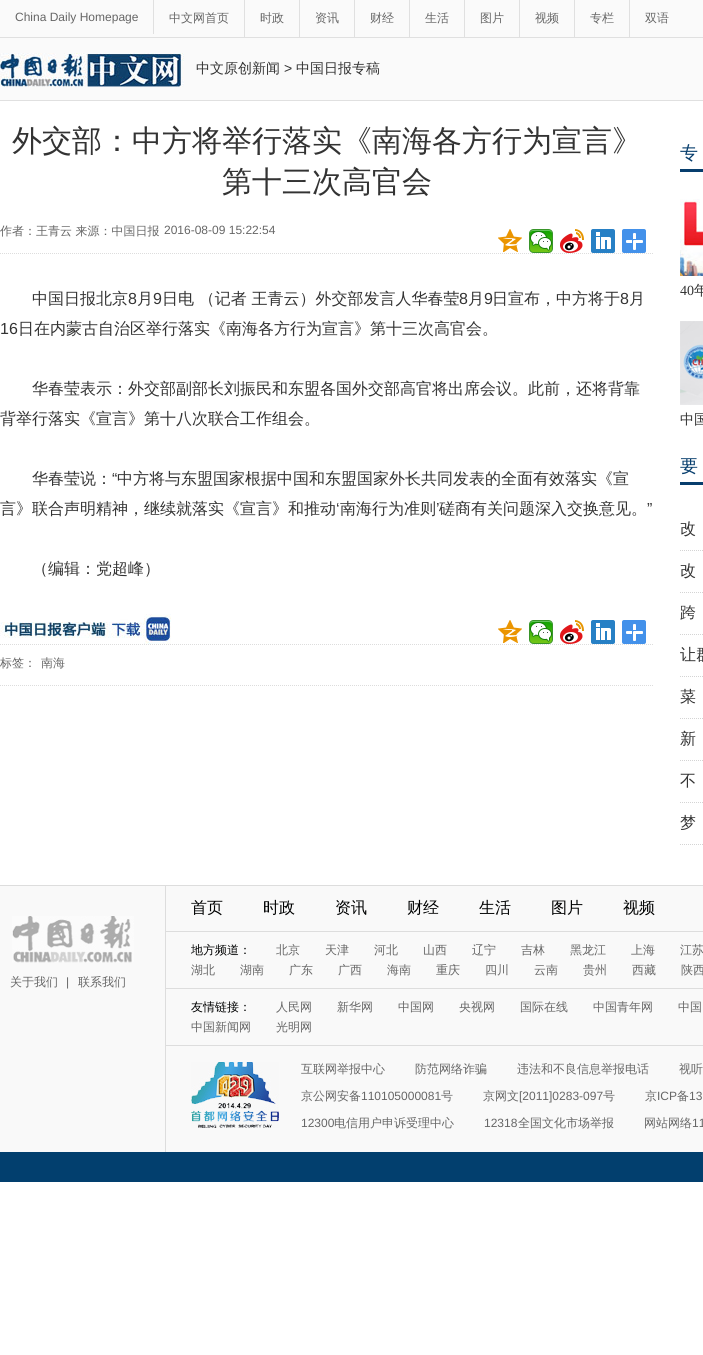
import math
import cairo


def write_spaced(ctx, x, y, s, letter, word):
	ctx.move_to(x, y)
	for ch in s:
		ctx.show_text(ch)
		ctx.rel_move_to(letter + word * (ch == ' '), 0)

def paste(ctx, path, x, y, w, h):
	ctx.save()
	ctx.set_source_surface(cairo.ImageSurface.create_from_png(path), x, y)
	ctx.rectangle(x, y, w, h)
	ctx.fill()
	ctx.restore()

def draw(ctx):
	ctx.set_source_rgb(1, 1, 1)
	ctx.paint()
	ctx.set_source_rgb(0.98, 0.98, 0.98)
	ctx.rectangle(0, 0, 703, 100)
	ctx.fill()
	ctx.set_source_rgb(0.878, 0.878, 0.878)
	ctx.rectangle(0, 100, 703, 1)
	ctx.rectangle(0, 37, 703, 1)
	ctx.rectangle(153, 0, 1, 34)
	ctx.fill()
	ctx.select_font_face('Liberation Sans')
	ctx.set_font_size(12)
	ctx.set_source_rgb(0.4, 0.4, 0.4)
	ctx.move_to(15, 21)
	ctx.show_text('China Daily Homepage')
	ctx.set_source_rgb(0.878, 0.878, 0.878)
	ctx.rectangle(244, 0, 1, 37)
	ctx.fill()
	ctx.select_font_face('WenQuanYi Zen Hei Medium')
	ctx.set_source_rgb(0.4, 0.4, 0.4)
	ctx.move_to(169, 22)
	ctx.show_text('中文网首页')
	ctx.set_source_rgb(0.878, 0.878, 0.878)
	ctx.rectangle(299, 0, 1, 37)
	ctx.fill()
	ctx.set_source_rgb(0.4, 0.4, 0.4)
	ctx.move_to(260, 22)
	ctx.show_text('时政')
	ctx.set_source_rgb(0.878, 0.878, 0.878)
	ctx.rectangle(354, 0, 1, 37)
	ctx.fill()
	ctx.set_source_rgb(0.4, 0.4, 0.4)
	ctx.move_to(315, 22)
	ctx.show_text('资讯')
	ctx.set_source_rgb(0.878, 0.878, 0.878)
	ctx.rectangle(409, 0, 1, 37)
	ctx.fill()
	ctx.set_source_rgb(0.4, 0.4, 0.4)
	ctx.move_to(370, 22)
	ctx.show_text('财经')
	ctx.set_source_rgb(0.878, 0.878, 0.878)
	ctx.rectangle(464, 0, 1, 37)
	ctx.fill()
	ctx.set_source_rgb(0.4, 0.4, 0.4)
	ctx.move_to(425, 22)
	ctx.show_text('生活')
	ctx.set_source_rgb(0.878, 0.878, 0.878)
	ctx.rectangle(519, 0, 1, 37)
	ctx.fill()
	ctx.set_source_rgb(0.4, 0.4, 0.4)
	ctx.move_to(480, 22)
	ctx.show_text('图片')
	ctx.set_source_rgb(0.878, 0.878, 0.878)
	ctx.rectangle(574, 0, 1, 37)
	ctx.fill()
	ctx.set_source_rgb(0.4, 0.4, 0.4)
	ctx.move_to(535, 22)
	ctx.show_text('视频')
	ctx.set_source_rgb(0.878, 0.878, 0.878)
	ctx.rectangle(629, 0, 1, 37)
	ctx.fill()
	ctx.set_source_rgb(0.4, 0.4, 0.4)
	ctx.move_to(590, 22)
	ctx.show_text('专栏')
	ctx.move_to(645, 22)
	ctx.show_text('双语')
	paste(ctx, 'media/1.png', 0, 53, 184, 34)
	ctx.set_font_size(14)
	ctx.set_source_rgb(0.2, 0.2, 0.2)
	ctx.move_to(196, 73)
	ctx.show_text('中文原创新闻')
	ctx.select_font_face('Liberation Sans')
	ctx.move_to(284, 73)
	ctx.show_text('>')
	ctx.select_font_face('WenQuanYi Zen Hei Medium')
	ctx.move_to(296, 73)
	ctx.show_text('中国日报专稿')
	ctx.set_font_size(30)
	ctx.move_to(12, 151)
	ctx.show_text('外交部：中方将举行落实《南海各方行为宣言》')
	ctx.move_to(222, 192)
	ctx.show_text('第十三次高官会')
	ctx.new_path()
	ctx.move_to(0, 253.5)
	ctx.line_to(653, 253.5)
	ctx.set_source_rgb(0.867, 0.867, 0.867)
	ctx.set_line_width(1)
	ctx.set_dash([1, 1])
	ctx.stroke()
	ctx.set_font_size(12)
	ctx.set_source_rgb(0.4, 0.4, 0.4)
	ctx.move_to(0, 235)
	ctx.show_text('作者：王青云 来源：中国日报')
	ctx.select_font_face('Liberation Sans')
	ctx.move_to(164, 234)
	ctx.show_text('2016-08-09 15:22:54')
	paste(ctx, 'media/2.png', 498, 229, 24, 23)
	paste(ctx, 'media/3.png', 529, 229, 24, 24)
	paste(ctx, 'media/4.png', 560, 229, 24, 24)
	paste(ctx, 'media/5.png', 591, 229, 24, 24)
	paste(ctx, 'media/6.png', 622, 229, 24, 24)
	ctx.select_font_face('WenQuanYi Zen Hei Medium')
	ctx.set_font_size(16)
	ctx.set_source_rgb(0.2, 0.2, 0.2)
	ctx.move_to(32, 304)
	ctx.show_text('中国日报北京')
	ctx.select_font_face('Liberation Sans')
	ctx.move_to(128, 304)
	ctx.show_text('8')
	ctx.select_font_face('WenQuanYi Zen Hei Medium')
	ctx.move_to(137, 304)
	ctx.show_text('月')
	ctx.select_font_face('Liberation Sans')
	ctx.move_to(153, 304)
	ctx.show_text('9')
	ctx.select_font_face('WenQuanYi Zen Hei Medium')
	ctx.move_to(162, 304)
	ctx.show_text('日电 （记者 王青云）外交部发言人华春莹')
	ctx.select_font_face('Liberation Sans')
	ctx.move_to(459, 304)
	ctx.show_text('8')
	ctx.select_font_face('WenQuanYi Zen Hei Medium')
	ctx.move_to(468, 304)
	ctx.show_text('月')
	ctx.select_font_face('Liberation Sans')
	ctx.move_to(484, 304)
	ctx.show_text('9')
	ctx.select_font_face('WenQuanYi Zen Hei Medium')
	ctx.move_to(492, 304)
	ctx.show_text('日宣布，中方将于')
	ctx.select_font_face('Liberation Sans')
	ctx.move_to(620, 304)
	ctx.show_text('8')
	ctx.select_font_face('WenQuanYi Zen Hei Medium')
	ctx.move_to(629, 304)
	ctx.show_text('月')
	ctx.select_font_face('Liberation Sans')
	ctx.move_to(0, 334)
	ctx.show_text('16')
	ctx.select_font_face('WenQuanYi Zen Hei Medium')
	for x, y, s in [
		(18, 334, '日在内蒙古自治区举行落实《南海各方行为宣言》第十三次高官会。'),
		(32, 394, '华春莹表示：外交部副部长刘振民和东盟各国外交部高官将出席会议。此前，还将背靠'),
		(0, 424, '背举行落实《宣言》第十八次联合工作组会。'),
		(32, 484, '华春莹说：'),
	]:
		ctx.move_to(x, y)
		ctx.show_text(s)
	ctx.select_font_face('Liberation Sans')
	ctx.move_to(112, 484)
	ctx.show_text('“')
	ctx.select_font_face('WenQuanYi Zen Hei Medium')
	ctx.move_to(117, 484)
	ctx.show_text('中方将与东盟国家根据中国和东盟国家外长共同发表的全面有效落实《宣')
	ctx.move_to(0, 514)
	ctx.show_text('言》联合声明精神，继续就落实《宣言》和推动')
	ctx.select_font_face('Liberation Sans')
	ctx.move_to(336, 514)
	ctx.show_text('‘')
	ctx.select_font_face('WenQuanYi Zen Hei Medium')
	ctx.move_to(340, 514)
	ctx.show_text('南海行为准则')
	ctx.select_font_face('Liberation Sans')
	ctx.move_to(436, 514)
	ctx.show_text('’')
	ctx.select_font_face('WenQuanYi Zen Hei Medium')
	ctx.move_to(439, 514)
	ctx.show_text('磋商有关问题深入交换意见。')
	ctx.select_font_face('Liberation Sans')
	ctx.move_to(647, 514)
	ctx.show_text('”')
	ctx.select_font_face('WenQuanYi Zen Hei Medium')
	ctx.move_to(32, 574)
	ctx.show_text('（编辑：党超峰）')
	ctx.new_path()
	ctx.move_to(0, 644.5)
	ctx.line_to(653, 644.5)
	ctx.set_source_rgb(0.867, 0.867, 0.867)
	ctx.stroke()
	paste(ctx, 'media/7.png', 0, 614, 171, 30)
	paste(ctx, 'media/2.png', 498, 620, 24, 23)
	paste(ctx, 'media/3.png', 529, 620, 24, 24)
	paste(ctx, 'media/4.png', 560, 620, 24, 24)
	paste(ctx, 'media/5.png', 591, 620, 24, 24)
	paste(ctx, 'media/6.png', 622, 620, 24, 24)
	ctx.new_path()
	ctx.move_to(0, 685.5)
	ctx.line_to(653, 685.5)
	ctx.stroke()
	ctx.set_font_size(12)
	ctx.set_source_rgb(0.4, 0.4, 0.4)
	ctx.move_to(0, 667)
	ctx.show_text('标签：')
	ctx.move_to(41, 667)
	ctx.show_text('南海')
	ctx.set_source_rgb(0.031, 0.243, 0.427)
	ctx.rectangle(680, 169, 23, 3)
	ctx.fill()
	ctx.set_font_size(18)
	ctx.move_to(680, 159)
	ctx.show_text('专')
	paste(ctx, 'media/8.png', 680, 199, 23, 77)
	ctx.select_font_face('Liberation Serif')
	ctx.set_font_size(14)
	ctx.set_source_rgb(0.2, 0.2, 0.2)
	ctx.move_to(680, 295)
	ctx.show_text('40')
	ctx.select_font_face('WenQuanYi Zen Hei Medium')
	ctx.move_to(694, 295)
	ctx.show_text('年')
	paste(ctx, 'media/9.png', 680, 321, 23, 84)
	ctx.move_to(680, 424)
	ctx.show_text('中国')
	ctx.set_source_rgb(0.031, 0.243, 0.427)
	ctx.rectangle(680, 482, 23, 3)
	ctx.fill()
	ctx.set_font_size(18)
	ctx.move_to(680, 472)
	ctx.show_text('要')
	ctx.new_path()
	ctx.move_to(680, 550.5)
	ctx.line_to(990, 550.5)
	ctx.move_to(680, 592.5)
	ctx.line_to(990, 592.5)
	ctx.set_source_rgb(0.831, 0.831, 0.831)
	ctx.stroke()
	ctx.set_font_size(16)
	ctx.set_source_rgb(0.2, 0.2, 0.2)
	ctx.move_to(680, 534)
	ctx.show_text('改')
	ctx.move_to(680, 576)
	ctx.show_text('改')
	ctx.new_path()
	ctx.move_to(680, 634.5)
	ctx.line_to(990, 634.5)
	ctx.move_to(680, 676.5)
	ctx.line_to(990, 676.5)
	ctx.set_source_rgb(0.831, 0.831, 0.831)
	ctx.stroke()
	ctx.set_source_rgb(0.2, 0.2, 0.2)
	ctx.move_to(680, 618)
	ctx.show_text('跨')
	ctx.move_to(680, 660)
	ctx.show_text('让群')
	ctx.new_path()
	ctx.move_to(680, 718.5)
	ctx.line_to(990, 718.5)
	ctx.move_to(680, 760.5)
	ctx.line_to(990, 760.5)
	ctx.set_source_rgb(0.831, 0.831, 0.831)
	ctx.stroke()
	ctx.set_source_rgb(0.2, 0.2, 0.2)
	ctx.move_to(680, 702)
	ctx.show_text('菜')
	write_spaced(ctx, 680, 744, '新', 0, -1)
	ctx.new_path()
	ctx.move_to(680, 802.5)
	ctx.line_to(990, 802.5)
	ctx.move_to(680, 844.5)
	ctx.line_to(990, 844.5)
	ctx.set_source_rgb(0.831, 0.831, 0.831)
	ctx.stroke()
	ctx.set_source_rgb(0.2, 0.2, 0.2)
	ctx.move_to(680, 786)
	ctx.show_text('不')
	ctx.move_to(680, 828)
	ctx.show_text('梦')
	ctx.set_source_rgb(0.973, 0.973, 0.973)
	ctx.rectangle(0, 886, 703, 266)
	ctx.fill()
	ctx.set_source_rgb(0.867, 0.867, 0.867)
	ctx.rectangle(0, 885, 703, 1)
	ctx.fill()
	ctx.set_source_rgb(0.008, 0.247, 0.431)
	ctx.rectangle(0, 1152, 703, 30)
	ctx.fill()
	paste(ctx, 'media/10.png', 12, 916, 122, 47)
	ctx.set_font_size(12)
	ctx.set_source_rgb(0.4, 0.4, 0.4)
	ctx.move_to(10, 986)
	ctx.show_text('关于我们')
	ctx.select_font_face('Liberation Sans')
	ctx.move_to(66, 986)
	ctx.show_text('|')
	ctx.select_font_face('WenQuanYi Zen Hei Medium')
	ctx.move_to(78, 986)
	ctx.show_text('联系我们')
	ctx.set_source_rgb(0.867, 0.867, 0.867)
	ctx.rectangle(165, 886, 1, 266)
	ctx.fill()
	ctx.rectangle(166, 931, 537, 1)
	ctx.fill()
	ctx.set_font_size(16)
	ctx.set_source_rgb(0, 0.004, 0.004)
	for x, y, s in [
		(191, 913, '首页'),
		(263, 913, '时政'),
		(335, 913, '资讯'),
		(407, 913, '财经'),
		(479, 913, '生活'),
		(551, 913, '图片'),
		(623, 913, '视频'),
	]:
		ctx.move_to(x, y)
		ctx.show_text(s)
	ctx.set_source_rgb(0.867, 0.867, 0.867)
	ctx.rectangle(166, 988, 537, 1)
	ctx.fill()
	ctx.set_font_size(12)
	ctx.set_source_rgb(0, 0.004, 0.004)
	ctx.move_to(191, 954)
	ctx.show_text('地方频道：')
	ctx.set_source_rgb(0.4, 0.4, 0.4)
	for x, y, s in [
		(276, 954, '北京'),
		(325, 954, '天津'),
		(374, 954, '河北'),
		(423, 954, '山西'),
		(472, 954, '辽宁'),
		(521, 954, '吉林'),
		(570, 954, '黑龙江'),
		(631, 954, '上海'),
		(680, 954, '江苏'),
		(191, 974, '湖北'),
		(240, 974, '湖南'),
		(289, 974, '广东'),
		(338, 974, '广西'),
		(387, 974, '海南'),
		(436, 974, '重庆'),
		(485, 974, '四川'),
		(534, 974, '云南'),
		(583, 974, '贵州'),
		(632, 974, '西藏'),
		(681, 974, '陕西'),
	]:
		ctx.move_to(x, y)
		ctx.show_text(s)
	ctx.set_source_rgb(0.867, 0.867, 0.867)
	ctx.rectangle(166, 1045, 537, 1)
	ctx.fill()
	ctx.set_source_rgb(0, 0.004, 0.004)
	ctx.move_to(191, 1011)
	ctx.show_text('友情链接：')
	ctx.set_source_rgb(0.4, 0.4, 0.4)
	for x, y, s in [
		(276, 1011, '人民网'),
		(337, 1011, '新华网'),
		(398, 1011, '中国网'),
		(459, 1011, '央视网'),
		(520, 1011, '国际在线'),
		(593, 1011, '中国青年网'),
		(678, 1011, '中国'),
		(191, 1031, '中国新闻网'),
		(276, 1031, '光明网'),
	]:
		ctx.move_to(x, y)
		ctx.show_text(s)
	paste(ctx, 'media/11.png', 191, 1062, 88, 66)
	for x, y, s in [
		(301, 1073, '互联网举报中心'),
		(415, 1073, '防范网络诈骗'),
		(517, 1073, '违法和不良信息举报电话'),
		(679, 1073, '视听'),
		(301, 1100, '京公网安备'),
	]:
		ctx.move_to(x, y)
		ctx.show_text(s)
	ctx.select_font_face('Liberation Sans')
	ctx.move_to(361, 1100)
	ctx.show_text('110105000081')
	ctx.select_font_face('WenQuanYi Zen Hei Medium')
	ctx.move_to(441, 1100)
	ctx.show_text('号')
	ctx.move_to(483, 1100)
	ctx.show_text('京网文')
	ctx.select_font_face('Liberation Sans')
	ctx.move_to(519, 1100)
	ctx.show_text('[2011]0283-097')
	ctx.select_font_face('WenQuanYi Zen Hei Medium')
	ctx.move_to(603, 1100)
	ctx.show_text('号')
	ctx.move_to(645, 1100)
	ctx.show_text('京')
	ctx.select_font_face('Liberation Sans')
	ctx.move_to(657, 1100)
	ctx.show_text('ICP')
	ctx.select_font_face('WenQuanYi Zen Hei Medium')
	ctx.move_to(677, 1100)
	ctx.show_text('备')
	ctx.select_font_face('Liberation Sans')
	ctx.move_to(689, 1100)
	ctx.show_text('13')
	ctx.move_to(301, 1127)
	ctx.show_text('12300')
	ctx.select_font_face('WenQuanYi Zen Hei Medium')
	ctx.move_to(334, 1127)
	ctx.show_text('电信用户申诉受理中心')
	ctx.select_font_face('Liberation Sans')
	ctx.move_to(484, 1127)
	ctx.show_text('12318')
	ctx.select_font_face('WenQuanYi Zen Hei Medium')
	ctx.move_to(518, 1127)
	ctx.show_text('全国文化市场举报')
	ctx.move_to(644, 1127)
	ctx.show_text('网站网络')
	ctx.select_font_face('Liberation Sans')
	ctx.move_to(692, 1127)
	ctx.show_text('11')


surface = cairo.ImageSurface(cairo.FORMAT_RGB24, 703, 1355)
ctx = cairo.Context(surface)
options = cairo.FontOptions()
options.set_hint_metrics(cairo.HINT_METRICS_OFF)
options.set_hint_style(cairo.HINT_STYLE_NONE)
ctx.set_font_options(options)
ctx.set_miter_limit(4)
draw(ctx)
surface.write_to_png('image.png')
